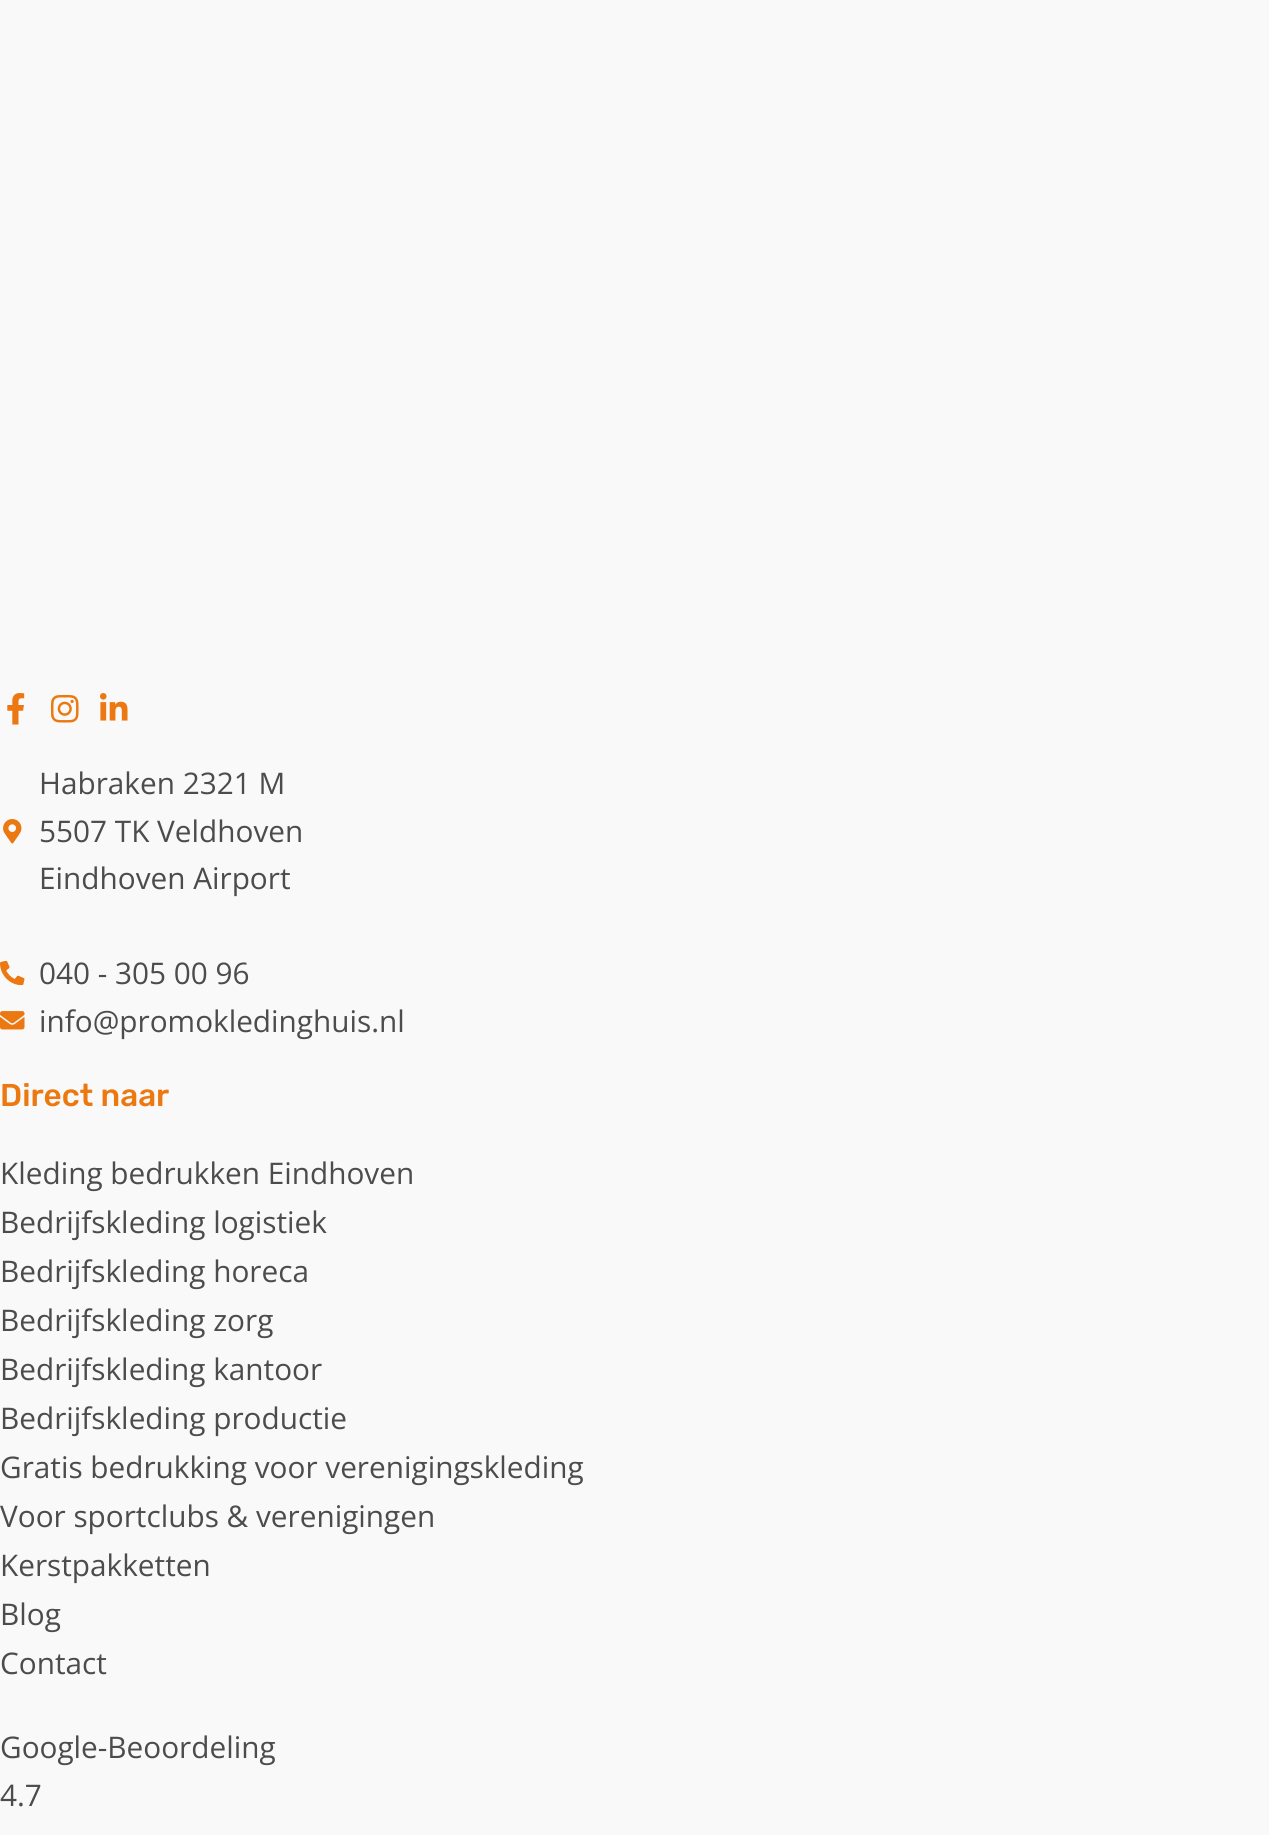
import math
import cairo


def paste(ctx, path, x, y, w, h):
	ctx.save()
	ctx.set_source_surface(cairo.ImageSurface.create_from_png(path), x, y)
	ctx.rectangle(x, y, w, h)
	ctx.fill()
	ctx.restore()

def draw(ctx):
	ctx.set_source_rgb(0.976, 0.976, 0.976)
	ctx.paint()
	paste(ctx, 'media/1.png', 7, 693, 18, 32)
	paste(ctx, 'media/2.png', 50, 694, 29, 29)
	paste(ctx, 'media/3.png', 100, 693, 28, 28)
	paste(ctx, 'media/4.png', 3, 819, 19, 25)
	ctx.select_font_face('Open Sans')
	ctx.set_font_size(29.75)
	ctx.set_source_rgb(0.302, 0.298, 0.298)
	for x, y, s in [
		(39, 794, 'Habraken 2321 M'),
		(39, 842, '5507 TK Veldhoven'),
		(39, 889, 'Eindhoven Airport'),
	]:
		ctx.move_to(x, y)
		ctx.show_text(s)
	paste(ctx, 'media/5.png', 0, 961, 25, 24)
	ctx.move_to(39, 984)
	ctx.show_text('040 - 305 00 96')
	paste(ctx, 'media/6.png', 0, 1011, 25, 19)
	ctx.move_to(39, 1032)
	ctx.show_text('info@promokledinghuis.nl')
	ctx.select_font_face('Rubik Medium')
	ctx.set_font_size(31.5)
	ctx.set_source_rgb(0.922, 0.471, 0.063)
	ctx.move_to(0, 1106)
	ctx.show_text('Direct naar')
	ctx.select_font_face('Open Sans')
	ctx.set_font_size(29.75)
	ctx.set_source_rgb(0.302, 0.298, 0.298)
	for x, y, s in [
		(0, 1184, 'Kleding bedrukken Eindhoven'),
		(0, 1233, 'Bedrijfskleding logistiek'),
		(0, 1282, 'Bedrijfskleding horeca'),
		(0, 1331, 'Bedrijfskleding zorg'),
		(0, 1380, 'Bedrijfskleding kantoor'),
		(0, 1429, 'Bedrijfskleding productie'),
		(0, 1478, 'Gratis bedrukking voor verenigingskleding'),
		(0, 1527, 'Voor sportclubs & verenigingen'),
		(0, 1576, 'Kerstpakketten'),
		(0, 1625, 'Blog'),
		(0, 1674, 'Contact'),
		(0, 1758, 'Google-Beoordeling'),
		(0, 1806, '4.7'),
	]:
		ctx.move_to(x, y)
		ctx.show_text(s)


surface = cairo.ImageSurface(cairo.FORMAT_RGB24, 1269, 1835)
ctx = cairo.Context(surface)
options = cairo.FontOptions()
options.set_hint_metrics(cairo.HINT_METRICS_OFF)
options.set_hint_style(cairo.HINT_STYLE_NONE)
ctx.set_font_options(options)
ctx.set_miter_limit(4)
draw(ctx)
surface.write_to_png('image.png')
